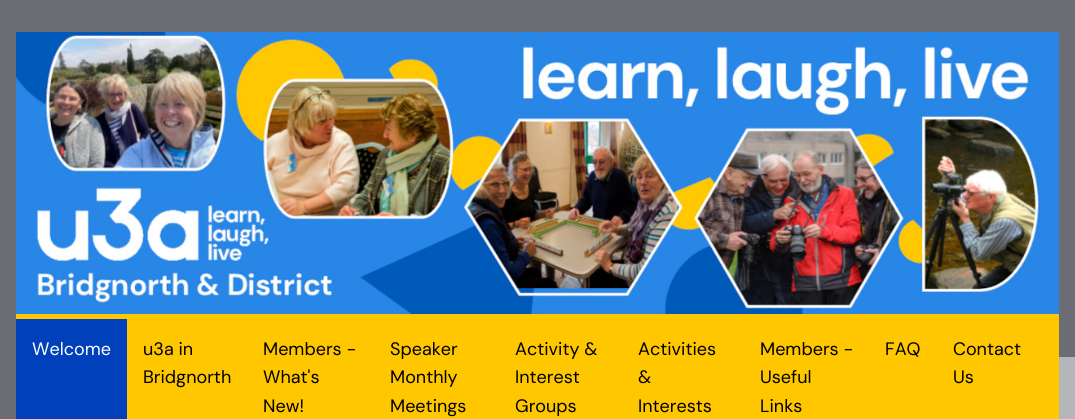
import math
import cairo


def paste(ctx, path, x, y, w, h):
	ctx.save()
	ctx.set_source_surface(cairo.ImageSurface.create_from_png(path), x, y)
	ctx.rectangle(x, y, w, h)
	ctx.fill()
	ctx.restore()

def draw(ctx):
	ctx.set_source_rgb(0.42, 0.424, 0.455)
	ctx.paint()
	paste(ctx, 'media/1.png', 16, 32, 1043, 282)
	ctx.set_source_rgb(1, 0.78, 0)
	ctx.rectangle(16, 314, 1043, 105)
	ctx.fill()
	ctx.set_source_rgb(0, 0.251, 0.733)
	ctx.rectangle(16, 319, 111, 100)
	ctx.fill()
	ctx.select_font_face('DM Sans')
	ctx.set_font_size(18)
	ctx.set_source_rgb(1, 1, 1)
	ctx.move_to(32, 355)
	ctx.show_text('Welcome')
	ctx.set_source_rgb(0, 0, 0)
	for x, y, s in [
		(143, 355, 'u3a in'),
		(143, 383, 'Bridgnorth'),
		(263, 355, 'Members -'),
		(263, 383, 'What\'s'),
		(263, 412, 'New!'),
		(390, 355, 'Speaker'),
		(390, 383, 'Monthly'),
		(390, 412, 'Meetings'),
		(515, 355, 'Activity &'),
		(515, 383, 'Interest'),
		(515, 412, 'Groups'),
		(638, 355, 'Activities'),
		(638, 383, '&'),
		(638, 412, 'Interests'),
		(760, 355, 'Members -'),
		(760, 383, 'Useful'),
		(760, 412, 'Links'),
		(885, 355, 'FAQ'),
		(953, 355, 'Contact'),
		(953, 383, 'Us'),
	]:
		ctx.move_to(x, y)
		ctx.show_text(s)
	ctx.set_source_rgb(0.71, 0.714, 0.729)
	ctx.rectangle(1059, 357, 16, 62)
	ctx.fill()


surface = cairo.ImageSurface(cairo.FORMAT_RGB24, 1075, 419)
ctx = cairo.Context(surface)
options = cairo.FontOptions()
options.set_hint_metrics(cairo.HINT_METRICS_OFF)
options.set_hint_style(cairo.HINT_STYLE_NONE)
ctx.set_font_options(options)
ctx.set_miter_limit(4)
draw(ctx)
surface.write_to_png('image.png')
